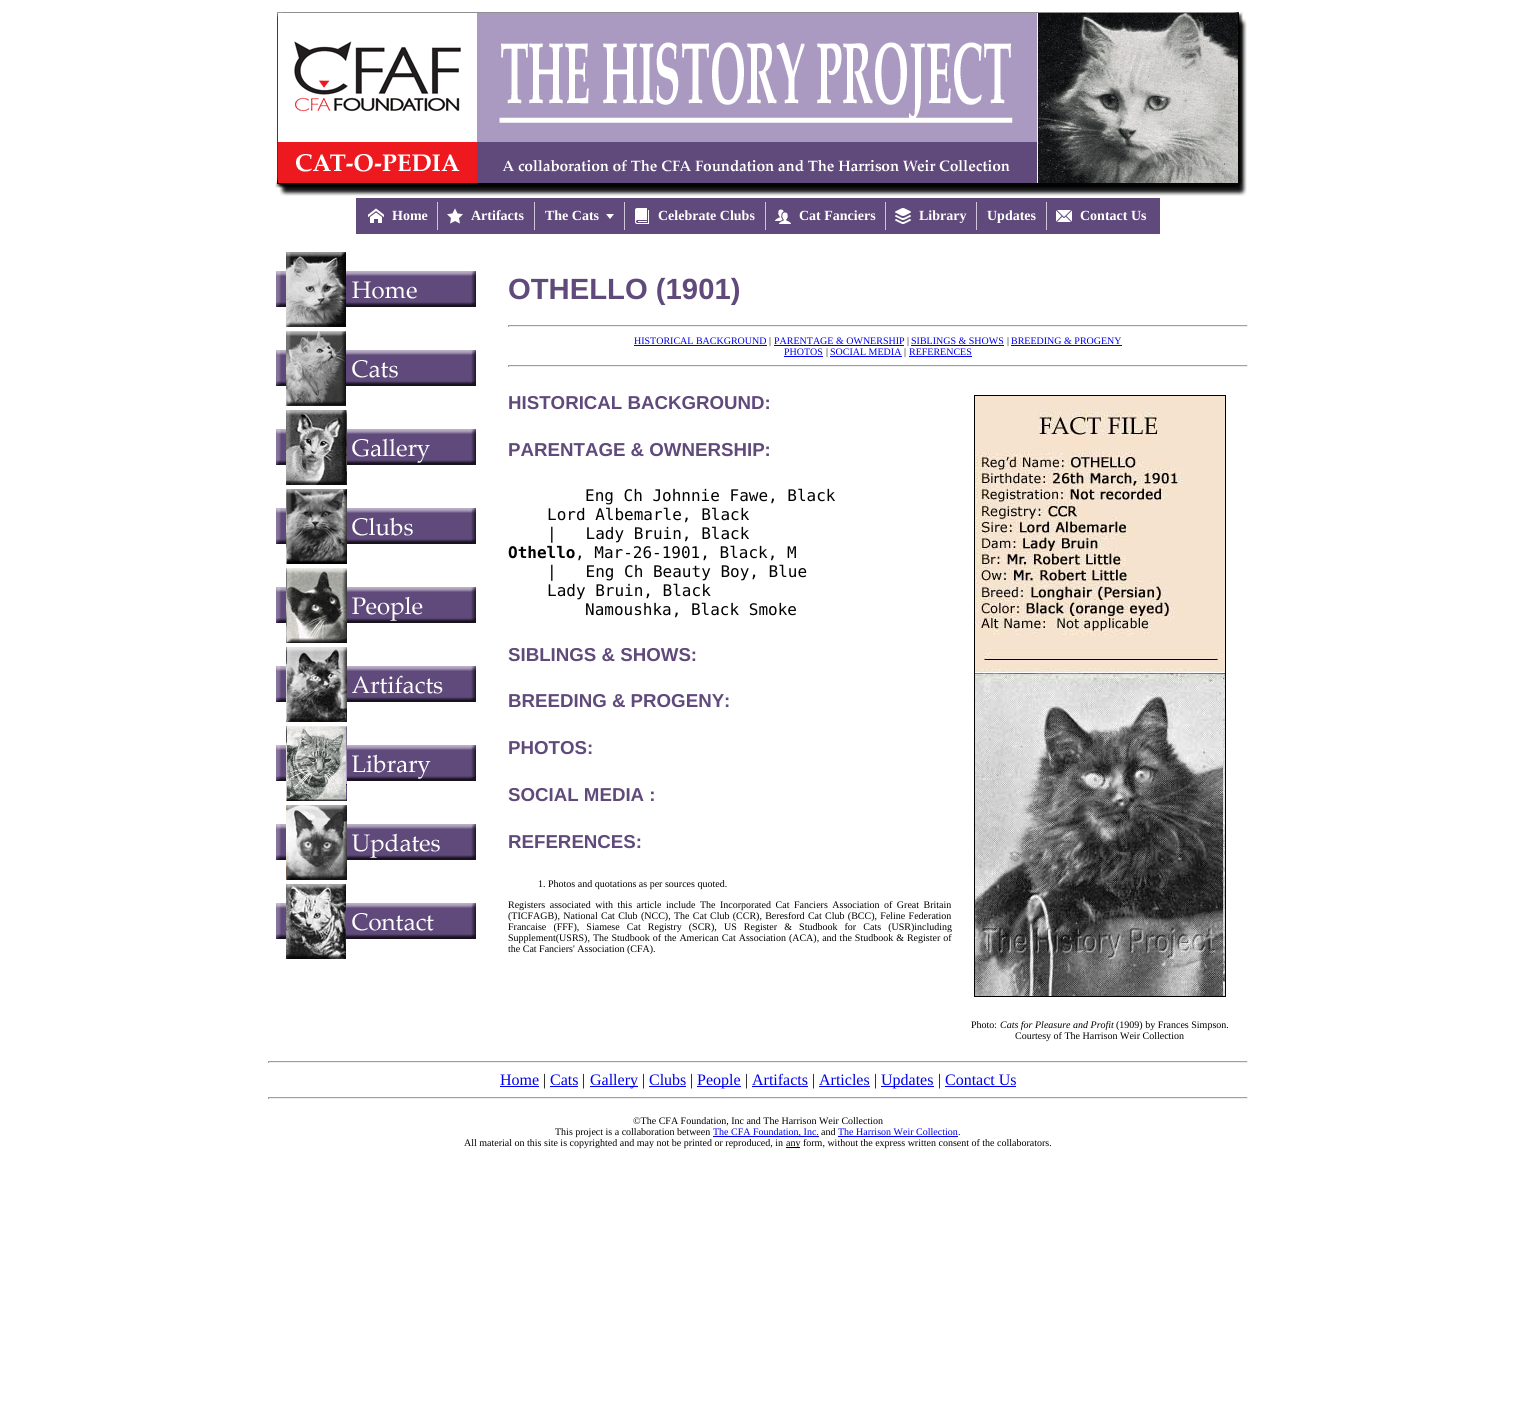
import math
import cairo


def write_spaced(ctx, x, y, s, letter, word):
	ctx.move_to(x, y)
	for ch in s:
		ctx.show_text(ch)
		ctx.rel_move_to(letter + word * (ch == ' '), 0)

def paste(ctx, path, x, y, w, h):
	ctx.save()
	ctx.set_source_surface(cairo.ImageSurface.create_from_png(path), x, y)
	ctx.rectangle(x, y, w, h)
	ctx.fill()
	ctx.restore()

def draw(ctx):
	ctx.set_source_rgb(1, 1, 1)
	ctx.paint()
	paste(ctx, 'media/1.png', 274, 11, 973, 185)
	ctx.set_source_rgb(0.376, 0.29, 0.482)
	ctx.rectangle(356, 198, 804, 36)
	ctx.fill()
	paste(ctx, 'media/2.png', 368, 208, 16, 15)
	ctx.select_font_face('Liberation Serif', cairo.FONT_SLANT_NORMAL, cairo.FONT_WEIGHT_BOLD)
	ctx.set_font_size(14)
	ctx.set_source_rgb(1, 1, 1)
	ctx.move_to(392, 220)
	ctx.show_text('Home')
	ctx.set_source_rgb(0.816, 0.776, 0.863)
	ctx.rectangle(437, 202, 1, 28)
	ctx.fill()
	paste(ctx, 'media/3.png', 447, 208, 16, 16)
	ctx.set_source_rgb(1, 1, 1)
	ctx.move_to(471, 220)
	ctx.show_text('Artifacts')
	ctx.set_source_rgb(0.816, 0.776, 0.863)
	ctx.rectangle(534, 202, 1, 28)
	ctx.fill()
	ctx.set_source_rgb(1, 1, 1)
	ctx.move_to(545, 220)
	ctx.show_text('The Cats')
	ctx.new_path()
	ctx.move_to(606, 214)
	ctx.line_to(614, 214)
	ctx.line_to(610, 219)
	ctx.close_path()
	ctx.fill()
	ctx.set_source_rgb(0.816, 0.776, 0.863)
	ctx.rectangle(624, 202, 1, 28)
	ctx.fill()
	paste(ctx, 'media/4.png', 635, 208, 14, 16)
	ctx.set_source_rgb(1, 1, 1)
	ctx.move_to(658, 220)
	ctx.show_text('Celebrate Clubs')
	ctx.set_source_rgb(0.816, 0.776, 0.863)
	ctx.rectangle(765, 202, 1, 28)
	ctx.fill()
	paste(ctx, 'media/5.png', 775, 209, 16, 15)
	ctx.set_source_rgb(1, 1, 1)
	ctx.move_to(799, 220)
	ctx.show_text('Cat Fanciers')
	ctx.set_source_rgb(0.816, 0.776, 0.863)
	ctx.rectangle(885, 202, 1, 28)
	ctx.fill()
	paste(ctx, 'media/6.png', 895, 208, 16, 16)
	ctx.set_source_rgb(1, 1, 1)
	ctx.move_to(919, 220)
	ctx.show_text('Library')
	ctx.set_source_rgb(0.816, 0.776, 0.863)
	ctx.rectangle(976, 202, 1, 28)
	ctx.fill()
	ctx.set_source_rgb(1, 1, 1)
	ctx.move_to(987, 220)
	ctx.show_text('Updates')
	ctx.set_source_rgb(0.816, 0.776, 0.863)
	ctx.rectangle(1046, 202, 1, 28)
	ctx.fill()
	paste(ctx, 'media/7.png', 1056, 210, 16, 12)
	ctx.set_source_rgb(1, 1, 1)
	ctx.move_to(1080, 220)
	ctx.show_text('Contact Us')
	paste(ctx, 'media/8.png', 276, 252, 200, 75)
	paste(ctx, 'media/9.png', 276, 331, 200, 75)
	paste(ctx, 'media/10.png', 276, 410, 200, 75)
	paste(ctx, 'media/11.png', 276, 489, 200, 75)
	paste(ctx, 'media/12.png', 276, 568, 200, 75)
	paste(ctx, 'media/13.png', 276, 647, 200, 75)
	paste(ctx, 'media/14.png', 276, 726, 200, 75)
	paste(ctx, 'media/15.png', 276, 805, 200, 75)
	paste(ctx, 'media/16.png', 276, 884, 200, 75)
	ctx.select_font_face('Liberation Sans', cairo.FONT_SLANT_NORMAL, cairo.FONT_WEIGHT_BOLD)
	ctx.set_font_size(29.25)
	ctx.set_source_rgb(0.376, 0.29, 0.482)
	ctx.move_to(508, 299)
	ctx.show_text('OTHELLO (1901)')
	ctx.set_source_rgb(0.624, 0.624, 0.624)
	ctx.rectangle(508, 325, 740, 1)
	ctx.fill()
	ctx.set_source_rgb(0.933, 0.933, 0.933)
	ctx.rectangle(1247, 325, 1, 2)
	ctx.rectangle(508, 326, 740, 1)
	ctx.fill()
	ctx.set_source_rgb(0.624, 0.624, 0.624)
	ctx.rectangle(508, 325, 1, 2)
	ctx.fill()
	ctx.select_font_face('Liberation Serif')
	ctx.set_font_size(10)
	ctx.set_source_rgb(0, 0, 0.933)
	ctx.move_to(634, 344)
	ctx.show_text('HISTORICAL BACKGROUND')
	ctx.rectangle(634, 345, 133, 1)
	ctx.fill()
	ctx.set_source_rgb(0, 0, 0)
	ctx.move_to(769, 344)
	ctx.show_text('|')
	ctx.set_source_rgb(0, 0, 0.933)
	ctx.move_to(774, 344)
	ctx.show_text('PARENTAGE & OWNERSHIP')
	ctx.rectangle(774, 345, 130, 1)
	ctx.fill()
	ctx.set_source_rgb(0, 0, 0)
	ctx.move_to(907, 344)
	ctx.show_text('|')
	ctx.set_source_rgb(0, 0, 0.933)
	ctx.rectangle(911, 345, 93, 1)
	ctx.fill()
	ctx.move_to(911, 344)
	ctx.show_text('SIBLINGS & SHOWS')
	ctx.set_source_rgb(0, 0, 0)
	ctx.move_to(1007, 344)
	ctx.show_text('|')
	ctx.set_source_rgb(0, 0, 0.933)
	ctx.move_to(1011, 344)
	ctx.show_text('BREEDING & PROGENY')
	ctx.rectangle(1011, 345, 111, 1)
	ctx.fill()
	ctx.move_to(784, 355)
	ctx.show_text('PHOTOS')
	ctx.rectangle(784, 356, 39, 1)
	ctx.fill()
	ctx.set_source_rgb(0, 0, 0)
	ctx.move_to(826, 355)
	ctx.show_text('|')
	ctx.set_source_rgb(0, 0, 0.933)
	ctx.rectangle(830, 356, 72, 1)
	ctx.fill()
	ctx.move_to(830, 355)
	ctx.show_text('SOCIAL MEDIA')
	ctx.set_source_rgb(0, 0, 0)
	ctx.move_to(904, 355)
	ctx.show_text('|')
	ctx.set_source_rgb(0, 0, 0.933)
	ctx.move_to(909, 355)
	ctx.show_text('REFERENCES')
	ctx.rectangle(909, 356, 63, 1)
	ctx.fill()
	ctx.set_source_rgb(0.624, 0.624, 0.624)
	ctx.rectangle(508, 365, 740, 1)
	ctx.fill()
	ctx.set_source_rgb(0.933, 0.933, 0.933)
	ctx.rectangle(1247, 365, 1, 2)
	ctx.rectangle(508, 366, 740, 1)
	ctx.fill()
	ctx.set_source_rgb(0.624, 0.624, 0.624)
	ctx.rectangle(508, 365, 1, 2)
	ctx.fill()
	ctx.select_font_face('Liberation Sans', cairo.FONT_SLANT_NORMAL, cairo.FONT_WEIGHT_BOLD)
	ctx.set_font_size(18.7)
	ctx.set_source_rgb(0.376, 0.29, 0.482)
	ctx.move_to(508, 409)
	ctx.show_text('HISTORICAL BACKGROUND:')
	ctx.move_to(508, 456)
	ctx.show_text('PARENTAGE & OWNERSHIP:')
	ctx.select_font_face('DejaVu Sans Mono')
	ctx.set_font_size(16)
	ctx.set_source_rgb(0, 0, 0)
	for x, y, s in [
		(585, 501, 'Eng Ch Johnnie Fawe, Black'),
		(547, 520, 'Lord Albemarle, Black'),
		(547, 539, '|   Lady Bruin, Black'),
	]:
		ctx.move_to(x, y)
		ctx.show_text(s)
	ctx.select_font_face('DejaVu Sans Mono', cairo.FONT_SLANT_NORMAL, cairo.FONT_WEIGHT_BOLD)
	ctx.move_to(508, 558)
	ctx.show_text('Othello')
	ctx.select_font_face('DejaVu Sans Mono')
	for x, y, s in [
		(575, 558, ', Mar-26-1901, Black, M'),
		(547, 577, '|   Eng Ch Beauty Boy, Blue'),
		(547, 596, 'Lady Bruin, Black'),
		(585, 615, 'Namoushka, Black Smoke'),
	]:
		ctx.move_to(x, y)
		ctx.show_text(s)
	ctx.select_font_face('Liberation Sans', cairo.FONT_SLANT_NORMAL, cairo.FONT_WEIGHT_BOLD)
	ctx.set_font_size(18.7)
	ctx.set_source_rgb(0.376, 0.29, 0.482)
	for x, y, s in [
		(508, 661, 'SIBLINGS & SHOWS:'),
		(508, 707, 'BREEDING & PROGENY:'),
		(508, 754, 'PHOTOS:'),
		(508, 801, 'SOCIAL MEDIA :'),
		(508, 848, 'REFERENCES:'),
	]:
		ctx.move_to(x, y)
		ctx.show_text(s)
	ctx.select_font_face('Liberation Serif')
	ctx.set_font_size(10)
	ctx.set_source_rgb(0, 0, 0)
	ctx.move_to(538, 887)
	ctx.show_text('1. Photos and quotations as per sources quoted.')
	write_spaced(ctx, 508, 908, 'Registers associated with this article include The Incorporated Cat Fanciers Association of Great Britain', 0, 2)
	write_spaced(ctx, 508, 919, '(TICFAGB), National Cat Club (NCC), The Cat Club (CCR), Beresford Cat Club (BCC), Feline Federation', 0, 0.8)
	write_spaced(ctx, 508, 930, 'Francaise (FFF), Siamese Cat Registry (SCR), US Register & Studbook for Cats (USR)including', 0, 4.6)
	write_spaced(ctx, 508, 941, 'Supplement(USRS), The Studbook of the American Cat Association (ACA), and the Studbook & Register of', 0, 0.5)
	ctx.move_to(508, 952)
	ctx.show_text('the Cat Fanciers\' Association (CFA).')
	ctx.rectangle(974.5, 395.5, 251, 601)
	ctx.set_line_width(1)
	ctx.stroke()
	paste(ctx, 'media/17.png', 975, 396, 250, 600)
	ctx.move_to(971, 1028)
	ctx.show_text('Photo:')
	ctx.select_font_face('Liberation Serif', cairo.FONT_SLANT_ITALIC)
	ctx.move_to(1000, 1028)
	ctx.show_text('Cats for Pleasure and Profit')
	ctx.select_font_face('Liberation Serif')
	ctx.move_to(1116, 1028)
	ctx.show_text('(1909) by Frances Simpson.')
	ctx.move_to(1015, 1039)
	ctx.show_text('Courtesy of The Harrison Weir Collection')
	ctx.set_source_rgb(0.624, 0.624, 0.624)
	ctx.rectangle(268, 1061, 980, 1)
	ctx.fill()
	ctx.set_source_rgb(0.933, 0.933, 0.933)
	ctx.rectangle(1247, 1061, 1, 2)
	ctx.rectangle(268, 1062, 980, 1)
	ctx.fill()
	ctx.set_source_rgb(0.624, 0.624, 0.624)
	ctx.rectangle(268, 1061, 1, 2)
	ctx.fill()
	ctx.set_font_size(16)
	ctx.set_source_rgb(0, 0, 0.933)
	ctx.move_to(500, 1085)
	ctx.show_text('Home')
	ctx.rectangle(500, 1086, 39, 1)
	ctx.fill()
	ctx.set_source_rgb(0, 0, 0)
	ctx.move_to(543, 1085)
	ctx.show_text('|')
	ctx.set_source_rgb(0, 0, 0.933)
	ctx.move_to(550, 1085)
	ctx.show_text('Cats')
	ctx.rectangle(550, 1086, 28, 1)
	ctx.fill()
	ctx.set_source_rgb(0, 0, 0)
	ctx.move_to(582, 1085)
	ctx.show_text('|')
	ctx.set_source_rgb(0, 0, 0.933)
	ctx.rectangle(590, 1086, 48, 1)
	ctx.fill()
	ctx.move_to(590, 1085)
	ctx.show_text('Gallery')
	ctx.set_source_rgb(0, 0, 0)
	ctx.move_to(642, 1085)
	ctx.show_text('|')
	ctx.set_source_rgb(0, 0, 0.933)
	ctx.move_to(649, 1085)
	ctx.show_text('Clubs')
	ctx.rectangle(649, 1086, 37, 1)
	ctx.fill()
	ctx.set_source_rgb(0, 0, 0)
	ctx.move_to(690, 1085)
	ctx.show_text('|')
	ctx.set_source_rgb(0, 0, 0.933)
	ctx.rectangle(697, 1086, 44, 1)
	ctx.fill()
	ctx.move_to(697, 1085)
	ctx.show_text('People')
	ctx.set_source_rgb(0, 0, 0)
	ctx.move_to(745, 1085)
	ctx.show_text('|')
	ctx.set_source_rgb(0, 0, 0.933)
	ctx.move_to(752, 1085)
	ctx.show_text('Artifacts')
	ctx.rectangle(752, 1086, 56, 1)
	ctx.fill()
	ctx.set_source_rgb(0, 0, 0)
	ctx.move_to(812, 1085)
	ctx.show_text('|')
	ctx.set_source_rgb(0, 0, 0.933)
	ctx.move_to(819, 1085)
	ctx.show_text('Articles')
	ctx.rectangle(819, 1086, 51, 1)
	ctx.fill()
	ctx.set_source_rgb(0, 0, 0)
	ctx.move_to(874, 1085)
	ctx.show_text('|')
	ctx.set_source_rgb(0, 0, 0.933)
	ctx.rectangle(881, 1086, 53, 1)
	ctx.fill()
	ctx.move_to(881, 1085)
	ctx.show_text('Updates')
	ctx.set_source_rgb(0, 0, 0)
	ctx.move_to(938, 1085)
	ctx.show_text('|')
	ctx.set_source_rgb(0, 0, 0.933)
	ctx.move_to(945, 1085)
	ctx.show_text('Contact Us')
	ctx.rectangle(945, 1086, 71, 1)
	ctx.fill()
	ctx.set_source_rgb(0.624, 0.624, 0.624)
	ctx.rectangle(268, 1097, 980, 1)
	ctx.fill()
	ctx.set_source_rgb(0.933, 0.933, 0.933)
	ctx.rectangle(1247, 1097, 1, 2)
	ctx.rectangle(268, 1098, 980, 1)
	ctx.fill()
	ctx.set_source_rgb(0.624, 0.624, 0.624)
	ctx.rectangle(268, 1097, 1, 2)
	ctx.fill()
	ctx.set_font_size(10)
	ctx.set_source_rgb(0, 0, 0)
	ctx.move_to(633, 1124)
	ctx.show_text('©The CFA Foundation, Inc and The Harrison Weir Collection')
	ctx.move_to(555, 1135)
	ctx.show_text('This project is a collaboration between')
	ctx.set_source_rgb(0, 0, 0.933)
	ctx.rectangle(713, 1136, 106, 1)
	ctx.fill()
	ctx.move_to(713, 1135)
	ctx.show_text('The CFA Foundation, Inc.')
	ctx.set_source_rgb(0, 0, 0)
	ctx.move_to(821, 1135)
	ctx.show_text('and')
	ctx.set_source_rgb(0, 0, 0.933)
	ctx.move_to(838, 1135)
	ctx.show_text('The Harrison Weir Collection')
	ctx.set_source_rgb(0, 0, 0)
	ctx.move_to(958, 1135)
	ctx.show_text('.')
	ctx.set_source_rgb(0, 0, 0.933)
	ctx.rectangle(838, 1136, 120, 1)
	ctx.fill()
	ctx.set_source_rgb(0, 0, 0)
	ctx.move_to(464, 1146)
	ctx.show_text('All material on this site is copyrighted and may not be printed or reproduced, in')
	ctx.rectangle(786, 1147, 14, 1)
	ctx.fill()
	ctx.move_to(786, 1146)
	ctx.show_text('any form, without the express written consent of the collaborators.')


surface = cairo.ImageSurface(cairo.FORMAT_RGB24, 1516, 1418)
ctx = cairo.Context(surface)
options = cairo.FontOptions()
options.set_hint_metrics(cairo.HINT_METRICS_OFF)
options.set_hint_style(cairo.HINT_STYLE_NONE)
ctx.set_font_options(options)
ctx.set_miter_limit(4)
draw(ctx)
surface.write_to_png('image.png')
